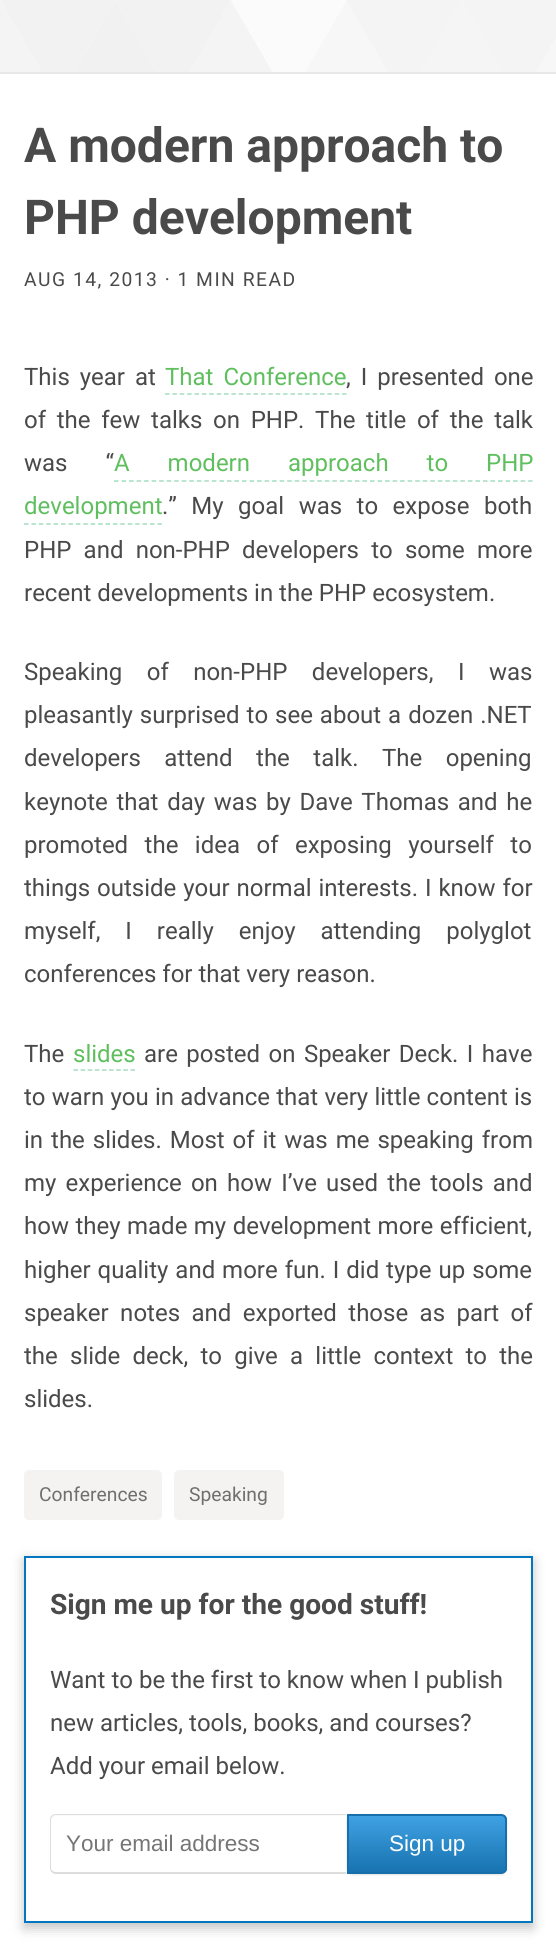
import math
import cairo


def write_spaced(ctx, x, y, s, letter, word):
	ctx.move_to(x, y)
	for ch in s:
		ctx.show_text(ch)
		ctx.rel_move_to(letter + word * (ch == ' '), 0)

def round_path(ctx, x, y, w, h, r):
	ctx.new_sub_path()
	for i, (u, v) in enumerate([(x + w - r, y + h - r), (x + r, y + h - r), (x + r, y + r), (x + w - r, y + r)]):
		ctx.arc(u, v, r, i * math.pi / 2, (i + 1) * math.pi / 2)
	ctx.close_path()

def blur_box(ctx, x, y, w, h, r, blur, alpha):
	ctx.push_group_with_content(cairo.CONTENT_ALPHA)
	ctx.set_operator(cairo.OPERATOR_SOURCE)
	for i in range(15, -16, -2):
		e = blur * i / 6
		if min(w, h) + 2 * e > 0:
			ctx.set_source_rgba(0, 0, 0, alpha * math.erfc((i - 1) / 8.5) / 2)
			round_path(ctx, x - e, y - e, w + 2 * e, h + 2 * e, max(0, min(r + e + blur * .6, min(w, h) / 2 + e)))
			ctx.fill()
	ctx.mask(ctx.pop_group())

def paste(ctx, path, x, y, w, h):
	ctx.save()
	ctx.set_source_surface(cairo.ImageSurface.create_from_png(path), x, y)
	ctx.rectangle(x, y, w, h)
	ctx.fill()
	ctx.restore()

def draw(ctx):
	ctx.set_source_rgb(1, 1, 1)
	ctx.paint()
	paste(ctx, 'media/1.png', 0, 0, 556, 72)
	ctx.set_source_rgb(0.91, 0.91, 0.91)
	ctx.rectangle(0, 72, 556, 2)
	ctx.fill()
	ctx.select_font_face('Roboto', cairo.FONT_SLANT_NORMAL, cairo.FONT_WEIGHT_BOLD)
	ctx.set_font_size(48)
	ctx.set_source_rgb(0.29, 0.29, 0.29)
	ctx.move_to(24, 162)
	ctx.show_text('A modern approach to')
	ctx.move_to(24, 234)
	ctx.show_text('PHP development')
	ctx.select_font_face('Roboto')
	ctx.set_font_size(19.25)
	write_spaced(ctx, 24, 286, 'AUG 14, 2013 · 1 MIN READ', 1.5, 0)
	ctx.set_font_size(24)
	write_spaced(ctx, 24, 385, 'This year at', 0, 4)
	ctx.set_source_rgb(0.373, 0.749, 0.369)
	write_spaced(ctx, 165, 385, 'That Conference', 0, 4)
	ctx.new_path()
	ctx.move_to(165, 394)
	ctx.line_to(346.5, 394)
	ctx.set_source_rgb(0.639, 0.863, 0.753)
	ctx.set_line_width(1.5)
	ctx.set_dash([4.5, 2.88])
	ctx.stroke()
	ctx.set_source_rgb(0.29, 0.29, 0.29)
	write_spaced(ctx, 346, 385, ', I presented one', 0, 4)
	write_spaced(ctx, 24, 428, 'of the few talks on PHP. The title of the talk', 0, 4.75)
	write_spaced(ctx, 24, 471, 'was “', 0, 32)
	ctx.set_source_rgb(0.373, 0.749, 0.369)
	write_spaced(ctx, 114, 471, 'A modern approach to PHP', 0, 32)
	ctx.new_path()
	ctx.move_to(114, 481)
	ctx.line_to(532.5, 481)
	ctx.set_source_rgb(0.639, 0.863, 0.753)
	ctx.set_dash([4.5, 3.03])
	ctx.stroke()
	ctx.set_source_rgb(0.373, 0.749, 0.369)
	ctx.move_to(24, 514)
	ctx.show_text('development')
	ctx.new_path()
	ctx.move_to(24, 524)
	ctx.line_to(162, 524)
	ctx.set_source_rgb(0.639, 0.863, 0.753)
	ctx.set_dash([4.5, 2.91])
	ctx.stroke()
	ctx.set_source_rgb(0.29, 0.29, 0.29)
	write_spaced(ctx, 162, 514, '.” My goal was to expose both', 0, 8.5)
	write_spaced(ctx, 24, 558, 'PHP and non-PHP developers to some more', 0, 6.25)
	ctx.move_to(24, 601)
	ctx.show_text('recent developments in the PHP ecosystem.')
	write_spaced(ctx, 24, 680, 'Speaking of non-PHP developers, I was', 0, 18.5)
	write_spaced(ctx, 24, 723, 'pleasantly surprised to see about a dozen .NET', 0, 1)
	write_spaced(ctx, 24, 766, 'developers attend the talk. The opening', 0, 17.5)
	write_spaced(ctx, 24, 810, 'keynote that day was by Dave Thomas and he', 0, 2.75)
	write_spaced(ctx, 24, 853, 'promoted the idea of exposing yourself to', 0, 10.5)
	write_spaced(ctx, 24, 896, 'things outside your normal interests. I know for', 0, 1)
	write_spaced(ctx, 24, 939, 'myself, I really enjoy attending polyglot', 0, 19)
	ctx.move_to(24, 982)
	ctx.show_text('conferences for that very reason.')
	ctx.move_to(24, 1062)
	ctx.show_text('The')
	ctx.set_source_rgb(0.373, 0.749, 0.369)
	ctx.move_to(73, 1062)
	ctx.show_text('slides')
	ctx.new_path()
	ctx.move_to(73.5, 1070)
	ctx.line_to(135, 1070)
	ctx.set_source_rgb(0.639, 0.863, 0.753)
	ctx.set_dash([4.5, 2.62])
	ctx.stroke()
	ctx.set_source_rgb(0.29, 0.29, 0.29)
	write_spaced(ctx, 144, 1062, 'are posted on Speaker Deck. I have', 0, 2.5)
	write_spaced(ctx, 24, 1105, 'to warn you in advance that very little content is', 0, 0.25)
	write_spaced(ctx, 24, 1148, 'in the slides. Most of it was me speaking from', 0, 2)
	write_spaced(ctx, 24, 1191, 'my experience on how I’ve used the tools and', 0, 3.25)
	write_spaced(ctx, 24, 1234, 'how they made my development more efficient,', 0, 0.5)
	write_spaced(ctx, 24, 1278, 'higher quality and more fun. I did type up some', 0, 1)
	write_spaced(ctx, 24, 1321, 'speaker notes and exported those as part of', 0, 5.5)
	write_spaced(ctx, 24, 1364, 'the slide deck, to give a little context to the', 0, 6.25)
	ctx.move_to(24, 1407)
	ctx.show_text('slides.')
	ctx.set_source_rgb(0.957, 0.953, 0.945)
	round_path(ctx, 24, 1470, 138, 50, 5)
	ctx.fill()
	ctx.set_font_size(19.25)
	ctx.set_source_rgb(0.435, 0.435, 0.431)
	ctx.move_to(39, 1501)
	ctx.show_text('Conferences')
	ctx.set_source_rgb(0.957, 0.953, 0.945)
	round_path(ctx, 174, 1470, 110, 50, 5)
	ctx.fill()
	ctx.set_source_rgb(0.435, 0.435, 0.431)
	ctx.move_to(189, 1501)
	ctx.show_text('Speaking')
	ctx.save()
	ctx.set_fill_rule(cairo.FILL_RULE_EVEN_ODD)
	ctx.new_path()
	ctx.move_to(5, 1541)
	ctx.line_to(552, 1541)
	ctx.line_to(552, 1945)
	ctx.line_to(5, 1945)
	ctx.close_path()
	ctx.move_to(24, 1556)
	ctx.line_to(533, 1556)
	ctx.line_to(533, 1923)
	ctx.line_to(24, 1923)
	ctx.close_path()
	ctx.clip()
	ctx.set_source_rgb(0, 0, 0)
	blur_box(ctx, 24, 1560, 509, 368, 0, 6, 0.24)
	ctx.restore()
	ctx.rectangle(25, 1557, 507, 365)
	ctx.set_source_rgb(0.008, 0.467, 0.753)
	ctx.set_line_width(2)
	ctx.set_dash([])
	ctx.stroke()
	ctx.select_font_face('Roboto', cairo.FONT_SLANT_NORMAL, cairo.FONT_WEIGHT_BOLD)
	ctx.set_font_size(28.1)
	ctx.set_source_rgb(0.29, 0.29, 0.29)
	ctx.move_to(50, 1614)
	ctx.show_text('Sign me up for the good stuff!')
	ctx.select_font_face('Roboto')
	ctx.set_font_size(24)
	for x, y, s in [
		(50, 1688, 'Want to be the first to know when I publish'),
		(50, 1731, 'new articles, tools, books, and courses?'),
		(50, 1774, 'Add your email below.'),
	]:
		ctx.move_to(x, y)
		ctx.show_text(s)
	ctx.set_source_rgb(0.98, 0.98, 0.98)
	ctx.new_path()
	ctx.move_to(56, 1816)
	ctx.line_to(346, 1816)
	ctx.line_to(346, 1872)
	ctx.line_to(347, 1872)
	ctx.line_to(347, 1815)
	ctx.line_to(56, 1815)
	ctx.curve_to(53, 1815, 51, 1817, 51, 1820)
	ctx.line_to(51, 1821)
	ctx.curve_to(51, 1819, 53, 1816, 56, 1816)
	ctx.close_path()
	ctx.fill()
	ctx.set_source_rgb(0.867, 0.867, 0.867)
	ctx.set_fill_rule(cairo.FILL_RULE_EVEN_ODD)
	ctx.new_path()
	ctx.move_to(56, 1814)
	ctx.line_to(346, 1814)
	ctx.line_to(346, 1874)
	ctx.line_to(56, 1874)
	ctx.curve_to(52, 1874, 50, 1871, 50, 1868)
	ctx.line_to(50, 1820)
	ctx.curve_to(50, 1816, 52, 1814, 56, 1814)
	ctx.close_path()
	ctx.move_to(56, 1815)
	ctx.line_to(346, 1815)
	ctx.line_to(346, 1872)
	ctx.line_to(56, 1872)
	ctx.curve_to(53, 1872, 51, 1870, 51, 1868)
	ctx.line_to(51, 1820)
	ctx.curve_to(51, 1817, 53, 1815, 56, 1815)
	ctx.close_path()
	ctx.fill()
	ctx.select_font_face('Liberation Sans')
	ctx.set_font_size(22.5)
	ctx.set_source_rgb(0.459, 0.459, 0.459)
	ctx.move_to(66, 1851)
	ctx.show_text('Your email address')
	ctx.set_source_rgb(0, 0, 0)
	blur_box(ctx, 347, 1815, 160, 60, 6, 1, 0.12)
	ctx.save()
	ctx.set_fill_rule(cairo.FILL_RULE_WINDING)
	ctx.new_path()
	ctx.move_to(347, 1814)
	ctx.line_to(501, 1814)
	ctx.curve_to(504.5, 1814, 507, 1816.5, 507, 1820)
	ctx.line_to(507, 1868)
	ctx.curve_to(507, 1871.5, 504.5, 1874, 501, 1874)
	ctx.line_to(347, 1874)
	ctx.close_path()
	ctx.clip()
	gradient = cairo.LinearGradient(427, 1815, 427, 1872)
	gradient.add_color_stop_rgba(0, 0.251, 0.635, 0.894, 1)
	gradient.add_color_stop_rgba(1, 0.094, 0.451, 0.69, 1)
	ctx.set_source(gradient)
	ctx.rectangle(349, 1815, 158, 57)
	ctx.fill()
	ctx.restore()
	ctx.new_path()
	ctx.move_to(348, 1815)
	ctx.line_to(501, 1815)
	ctx.curve_to(504, 1815, 506, 1817, 506, 1820)
	ctx.line_to(506, 1868)
	ctx.curve_to(506, 1871, 504, 1873, 501, 1873)
	ctx.line_to(348, 1873)
	ctx.close_path()
	ctx.set_source_rgb(0.09, 0.439, 0.671)
	ctx.stroke()
	ctx.set_source_rgb(1, 1, 1)
	ctx.move_to(389, 1851)
	ctx.show_text('Sign up')


surface = cairo.ImageSurface(cairo.FORMAT_RGB24, 556, 1945)
ctx = cairo.Context(surface)
options = cairo.FontOptions()
options.set_hint_metrics(cairo.HINT_METRICS_OFF)
options.set_hint_style(cairo.HINT_STYLE_NONE)
ctx.set_font_options(options)
ctx.set_miter_limit(4)
draw(ctx)
surface.write_to_png('image.png')
